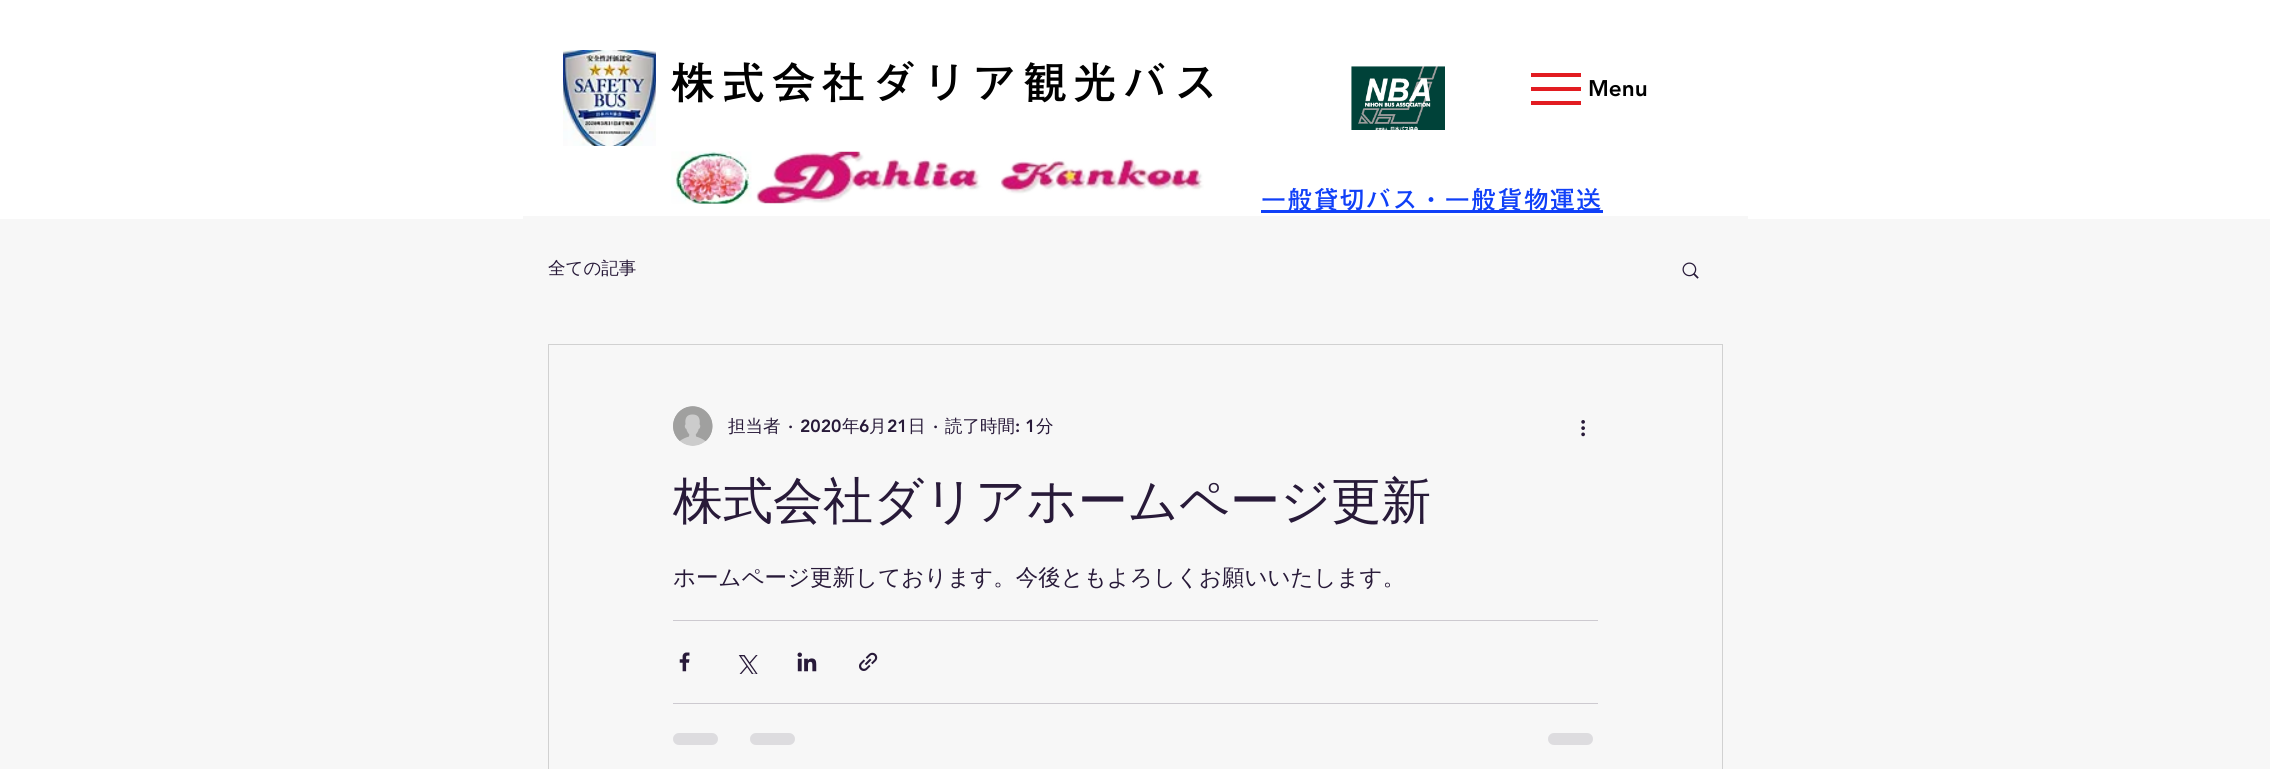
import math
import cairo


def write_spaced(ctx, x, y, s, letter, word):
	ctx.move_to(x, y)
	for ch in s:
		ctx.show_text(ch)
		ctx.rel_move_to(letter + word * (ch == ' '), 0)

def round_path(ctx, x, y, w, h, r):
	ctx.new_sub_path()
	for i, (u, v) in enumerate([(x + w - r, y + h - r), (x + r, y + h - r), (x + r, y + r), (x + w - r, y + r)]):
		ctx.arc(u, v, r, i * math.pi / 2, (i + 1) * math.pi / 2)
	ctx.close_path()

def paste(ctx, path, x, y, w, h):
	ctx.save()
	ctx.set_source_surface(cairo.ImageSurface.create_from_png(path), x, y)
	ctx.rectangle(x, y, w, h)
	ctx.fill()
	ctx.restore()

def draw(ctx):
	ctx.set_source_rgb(0.965, 0.965, 0.965)
	ctx.paint()
	ctx.set_source_rgb(1, 1, 1)
	ctx.rectangle(0, 0, 2270, 219)
	ctx.fill()
	paste(ctx, 'media/1.png', 563, 50, 93, 96)
	ctx.select_font_face('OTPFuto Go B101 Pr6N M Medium')
	ctx.set_font_size(43.75)
	ctx.set_source_rgb(0, 0, 0)
	write_spaced(ctx, 671, 99, '株式会社ダリア観光バス', 6.5, 0)
	paste(ctx, 'media/2.png', 1351, 66, 94, 64)
	ctx.set_source_rgb(0.886, 0.11, 0.129)
	ctx.rectangle(1531, 101, 50, 4)
	ctx.rectangle(1531, 73, 50, 4)
	ctx.rectangle(1531, 87, 50, 4)
	ctx.fill()
	ctx.select_font_face('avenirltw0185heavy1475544 Black')
	ctx.set_font_size(22.5)
	ctx.set_source_rgb(0, 0, 0)
	ctx.move_to(1588, 96)
	ctx.show_text('Menu')
	paste(ctx, 'media/3.png', 671, 151, 81, 53)
	paste(ctx, 'media/4.png', 756, 151, 448, 53)
	ctx.set_source_rgb(0.063, 0.251, 0.969)
	ctx.rectangle(1261, 210, 342, 3)
	ctx.fill()
	ctx.select_font_face('OTPFuto Go B101 Pr6N M Medium')
	ctx.set_font_size(25)
	write_spaced(ctx, 1261, 209, '一般貸切バス・一般貨物運送', 1.25, 0)
	ctx.set_source_rgb(0.965, 0.965, 0.965)
	ctx.rectangle(523, 216, 1225, 3)
	ctx.fill()
	ctx.select_font_face('WenQuanYi Zen Hei Medium')
	ctx.set_font_size(17.5)
	ctx.set_source_rgb(0.157, 0.102, 0.224)
	ctx.move_to(548, 274)
	ctx.show_text('全ての記事')
	paste(ctx, 'media/5.png', 1682, 262, 17, 17)
	ctx.rectangle(548.5, 344.5, 1174, 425)
	ctx.set_source_rgb(0.82, 0.82, 0.82)
	ctx.set_line_width(1)
	ctx.stroke()
	paste(ctx, 'media/6.png', 673, 406, 40, 40)
	ctx.set_source_rgb(0.157, 0.102, 0.224)
	ctx.move_to(728, 432)
	ctx.show_text('担当者')
	ctx.select_font_face('avenirltw0185heavy1475544 Black')
	ctx.move_to(788, 432)
	ctx.show_text('·')
	ctx.move_to(800, 432)
	ctx.show_text('2020')
	ctx.select_font_face('WenQuanYi Zen Hei Medium')
	ctx.move_to(842, 432)
	ctx.show_text('年')
	ctx.select_font_face('avenirltw0185heavy1475544 Black')
	ctx.move_to(859, 432)
	ctx.show_text('6')
	ctx.select_font_face('WenQuanYi Zen Hei Medium')
	ctx.move_to(869, 432)
	ctx.show_text('月')
	ctx.select_font_face('avenirltw0185heavy1475544 Black')
	ctx.move_to(887, 432)
	ctx.show_text('21')
	ctx.select_font_face('WenQuanYi Zen Hei Medium')
	ctx.move_to(908, 432)
	ctx.show_text('日')
	ctx.select_font_face('avenirltw0185heavy1475544 Black')
	ctx.move_to(933, 432)
	ctx.show_text('·')
	ctx.select_font_face('WenQuanYi Zen Hei Medium')
	ctx.move_to(945, 432)
	ctx.show_text('読了時間')
	ctx.select_font_face('avenirltw0185heavy1475544 Black')
	ctx.move_to(1015, 432)
	ctx.show_text(': 1')
	ctx.select_font_face('WenQuanYi Zen Hei Medium')
	ctx.move_to(1036, 432)
	ctx.show_text('分')
	paste(ctx, 'media/7.png', 1581, 420, 4, 17)
	ctx.set_font_size(50)
	ctx.move_to(673, 518)
	ctx.show_text('株式会社ダリアホームページ更新')
	ctx.set_font_size(22.5)
	ctx.move_to(673, 585)
	ctx.show_text('ホームページ更新しております。今後ともよろしくお願いいたします。')
	ctx.set_source_rgb(0.804, 0.792, 0.816)
	ctx.rectangle(673, 620, 925, 1)
	ctx.fill()
	paste(ctx, 'media/8.png', 679, 652, 11, 20)
	paste(ctx, 'media/9.png', 738, 655, 20, 19)
	paste(ctx, 'media/10.png', 797, 652, 20, 20)
	paste(ctx, 'media/11.png', 859, 652, 19, 19)
	ctx.rectangle(673, 703, 925, 1)
	ctx.fill()
	ctx.set_source_rgb(0.867, 0.863, 0.875)
	round_path(ctx, 673, 733, 45, 12, 6)
	ctx.fill()
	round_path(ctx, 750, 733, 45, 12, 6)
	ctx.fill()
	round_path(ctx, 1548, 733, 45, 12, 6)
	ctx.fill()


surface = cairo.ImageSurface(cairo.FORMAT_RGB24, 2270, 769)
ctx = cairo.Context(surface)
options = cairo.FontOptions()
options.set_hint_metrics(cairo.HINT_METRICS_OFF)
options.set_hint_style(cairo.HINT_STYLE_NONE)
ctx.set_font_options(options)
ctx.set_miter_limit(4)
draw(ctx)
surface.write_to_png('image.png')
